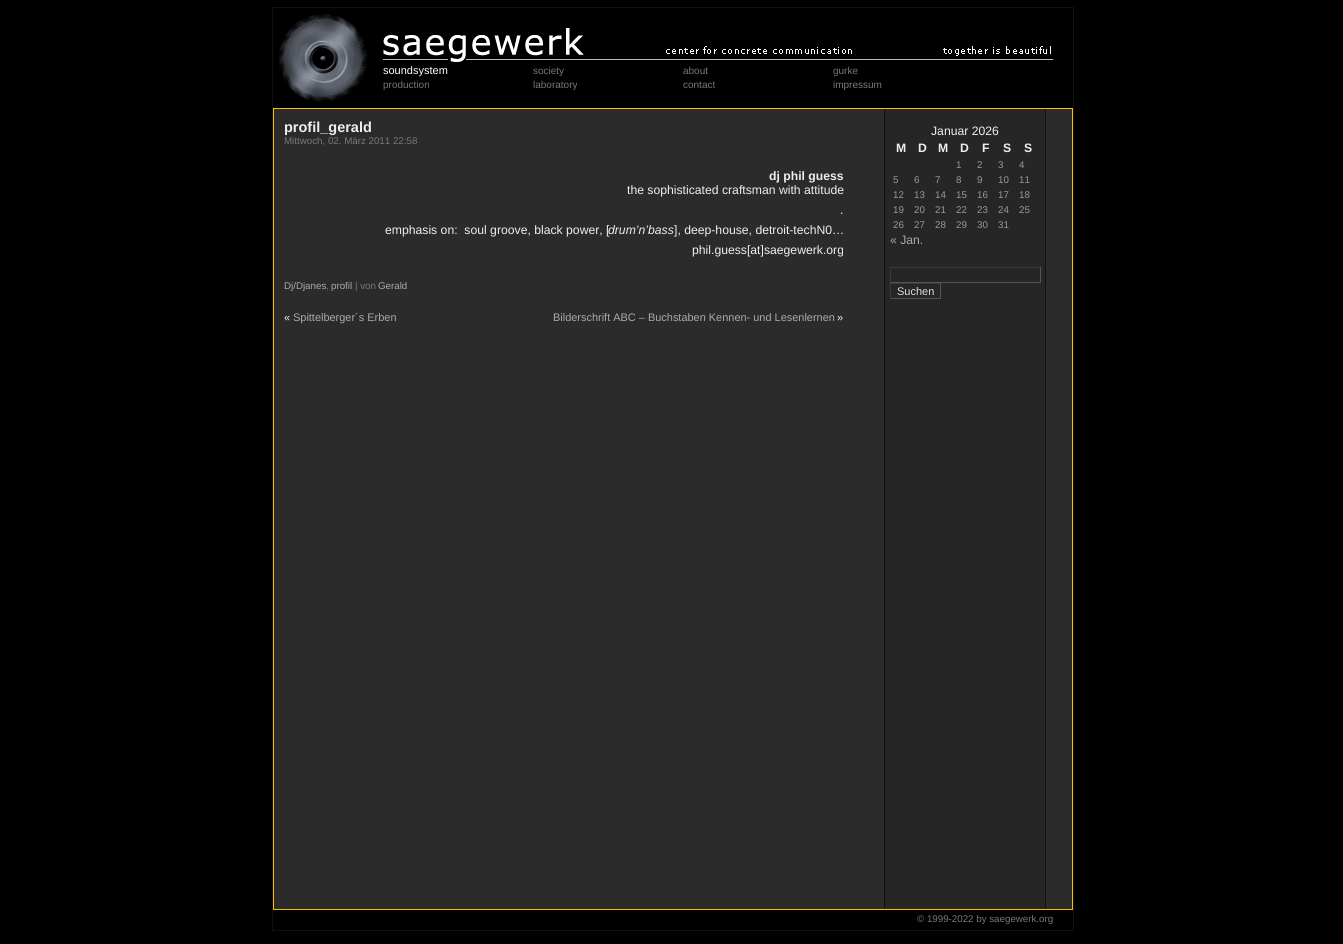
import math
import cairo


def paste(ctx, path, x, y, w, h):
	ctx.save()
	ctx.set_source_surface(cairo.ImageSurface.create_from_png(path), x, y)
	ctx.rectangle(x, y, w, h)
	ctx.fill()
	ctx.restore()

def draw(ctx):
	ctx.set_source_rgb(0, 0, 0)
	ctx.paint()
	ctx.rectangle(272.5, 7.5, 801, 923)
	ctx.set_source_rgb(0.067, 0.067, 0.067)
	ctx.set_line_width(1)
	ctx.stroke()
	paste(ctx, 'media/1.png', 279, 14, 89, 88)
	paste(ctx, 'media/2.png', 383, 28, 670, 34)
	ctx.select_font_face('Liberation Sans')
	ctx.set_font_size(11)
	ctx.set_source_rgb(1, 1, 1)
	ctx.move_to(383, 74)
	ctx.show_text('soundsystem')
	ctx.set_font_size(10)
	ctx.set_source_rgb(0.467, 0.467, 0.467)
	for x, y, s in [
		(383, 88, 'production'),
		(533, 74, 'society'),
		(533, 88, 'laboratory'),
		(683, 74, 'about'),
		(683, 88, 'contact'),
		(833, 74, 'gurke'),
		(833, 88, 'impressum'),
	]:
		ctx.move_to(x, y)
		ctx.show_text(s)
	ctx.set_source_rgb(0.169, 0.169, 0.169)
	ctx.rectangle(273.5, 108.5, 799, 801)
	ctx.fill_preserve()
	ctx.set_source_rgb(1, 0.733, 0)
	ctx.stroke()
	ctx.select_font_face('Liberation Sans', cairo.FONT_SLANT_NORMAL, cairo.FONT_WEIGHT_BOLD)
	ctx.set_font_size(14.5)
	ctx.set_source_rgb(0.933, 0.933, 0.933)
	ctx.move_to(284, 132)
	ctx.show_text('profil_gerald')
	ctx.select_font_face('Liberation Sans')
	ctx.set_font_size(9.75)
	ctx.set_source_rgb(0.467, 0.467, 0.467)
	ctx.move_to(284, 144)
	ctx.show_text('Mittwoch, 02. März 2011 22:58')
	ctx.select_font_face('Liberation Sans', cairo.FONT_SLANT_NORMAL, cairo.FONT_WEIGHT_BOLD)
	ctx.set_font_size(12.2)
	ctx.set_source_rgb(0.933, 0.933, 0.933)
	ctx.move_to(769, 180)
	ctx.show_text('dj phil guess')
	ctx.select_font_face('Liberation Sans')
	for x, y, s in [
		(627, 194, 'the sophisticated craftsman with attitude'),
		(840, 214, '.'),
		(385, 234, 'emphasis on:  soul groove, black power, ['),
	]:
		ctx.move_to(x, y)
		ctx.show_text(s)
	ctx.select_font_face('Liberation Sans', cairo.FONT_SLANT_ITALIC)
	ctx.move_to(608, 234)
	ctx.show_text('drum’n’bass')
	ctx.select_font_face('Liberation Sans')
	ctx.move_to(674, 234)
	ctx.show_text('], deep-house, detroit-techN0…')
	ctx.move_to(692, 254)
	ctx.show_text('phil.guess[at]saegewerk.org')
	ctx.set_font_size(9.75)
	ctx.set_source_rgb(0.667, 0.667, 0.667)
	ctx.move_to(284, 289)
	ctx.show_text('Dj/Djanes')
	ctx.set_source_rgb(0.467, 0.467, 0.467)
	ctx.move_to(326, 289)
	ctx.show_text(',')
	ctx.set_source_rgb(0.667, 0.667, 0.667)
	ctx.move_to(331, 289)
	ctx.show_text('profil')
	ctx.set_source_rgb(0.467, 0.467, 0.467)
	ctx.move_to(355, 289)
	ctx.show_text('| von')
	ctx.set_source_rgb(0.667, 0.667, 0.667)
	ctx.move_to(378, 289)
	ctx.show_text('Gerald')
	ctx.set_font_size(10.95)
	ctx.set_source_rgb(0.933, 0.933, 0.933)
	ctx.move_to(284, 321)
	ctx.show_text('«')
	ctx.set_source_rgb(0.667, 0.667, 0.667)
	ctx.move_to(293, 321)
	ctx.show_text('Spittelberger´s Erben')
	ctx.move_to(553, 321)
	ctx.show_text('Bilderschrift ABC – Buchstaben Kennen- und Lesenlernen')
	ctx.set_source_rgb(0.933, 0.933, 0.933)
	ctx.move_to(837, 321)
	ctx.show_text('»')
	ctx.set_source_rgb(0.149, 0.149, 0.149)
	ctx.rectangle(885, 109, 160, 800)
	ctx.fill()
	ctx.set_source_rgb(0.067, 0.067, 0.067)
	ctx.rectangle(1045, 109, 1, 800)
	ctx.rectangle(884, 109, 1, 800)
	ctx.fill()
	ctx.set_font_size(12.2)
	ctx.set_source_rgb(0.933, 0.933, 0.933)
	ctx.move_to(931, 135)
	ctx.show_text('Januar 2026')
	ctx.select_font_face('Liberation Sans', cairo.FONT_SLANT_NORMAL, cairo.FONT_WEIGHT_BOLD)
	for x, y, s in [
		(896, 152, 'M'),
		(918, 152, 'D'),
		(938, 152, 'M'),
		(960, 152, 'D'),
		(982, 152, 'F'),
		(1003, 152, 'S'),
		(1024, 152, 'S'),
	]:
		ctx.move_to(x, y)
		ctx.show_text(s)
	ctx.select_font_face('Liberation Sans')
	ctx.set_font_size(9.75)
	ctx.set_source_rgb(0.6, 0.6, 0.6)
	for x, y, s in [
		(956, 168, '1'),
		(977, 168, '2'),
		(998, 168, '3'),
		(1019, 168, '4'),
		(893, 183, '5'),
		(914, 183, '6'),
		(935, 183, '7'),
		(956, 183, '8'),
		(977, 183, '9'),
		(998, 183, '10'),
		(1019, 183, '11'),
		(893, 198, '12'),
		(914, 198, '13'),
		(935, 198, '14'),
		(956, 198, '15'),
		(977, 198, '16'),
		(998, 198, '17'),
		(1019, 198, '18'),
		(893, 213, '19'),
		(914, 213, '20'),
		(935, 213, '21'),
		(956, 213, '22'),
		(977, 213, '23'),
		(998, 213, '24'),
		(1019, 213, '25'),
		(893, 228, '26'),
		(914, 228, '27'),
		(935, 228, '28'),
		(956, 228, '29'),
		(977, 228, '30'),
		(998, 228, '31'),
	]:
		ctx.move_to(x, y)
		ctx.show_text(s)
	ctx.set_font_size(12.2)
	ctx.set_source_rgb(0.667, 0.667, 0.667)
	ctx.move_to(890, 244)
	ctx.show_text('« Jan.')
	ctx.set_source_rgb(0.224, 0.224, 0.224)
	ctx.rectangle(890, 267, 151, 1)
	ctx.fill()
	ctx.set_source_rgb(0.333, 0.333, 0.333)
	ctx.rectangle(1040, 267, 1, 16)
	ctx.rectangle(890, 282, 151, 1)
	ctx.fill()
	ctx.set_source_rgb(0.224, 0.224, 0.224)
	ctx.rectangle(890, 267, 1, 16)
	ctx.rectangle(890, 283, 51, 1)
	ctx.fill()
	ctx.set_source_rgb(0.333, 0.333, 0.333)
	ctx.rectangle(940, 283, 1, 16)
	ctx.rectangle(890, 298, 51, 1)
	ctx.fill()
	ctx.set_source_rgb(0.224, 0.224, 0.224)
	ctx.rectangle(890, 283, 1, 16)
	ctx.fill()
	ctx.set_font_size(11)
	ctx.set_source_rgb(0.867, 0.867, 0.867)
	ctx.move_to(897, 295)
	ctx.show_text('Suchen')
	ctx.set_font_size(9.75)
	ctx.set_source_rgb(0.467, 0.467, 0.467)
	ctx.move_to(917, 922)
	ctx.show_text('© 1999-2022 by saegewerk.org')


surface = cairo.ImageSurface(cairo.FORMAT_RGB24, 1343, 944)
ctx = cairo.Context(surface)
options = cairo.FontOptions()
options.set_hint_metrics(cairo.HINT_METRICS_OFF)
options.set_hint_style(cairo.HINT_STYLE_NONE)
ctx.set_font_options(options)
ctx.set_miter_limit(4)
draw(ctx)
surface.write_to_png('image.png')
